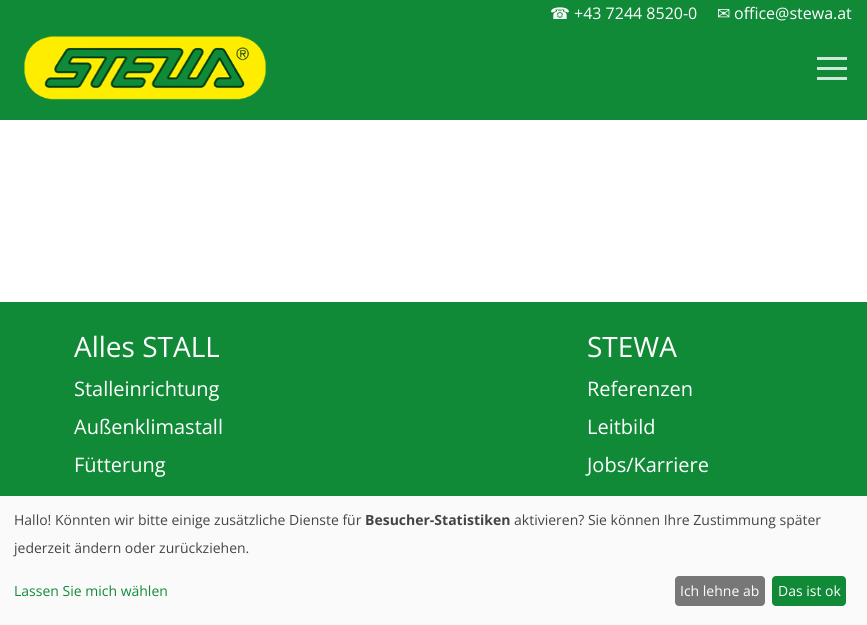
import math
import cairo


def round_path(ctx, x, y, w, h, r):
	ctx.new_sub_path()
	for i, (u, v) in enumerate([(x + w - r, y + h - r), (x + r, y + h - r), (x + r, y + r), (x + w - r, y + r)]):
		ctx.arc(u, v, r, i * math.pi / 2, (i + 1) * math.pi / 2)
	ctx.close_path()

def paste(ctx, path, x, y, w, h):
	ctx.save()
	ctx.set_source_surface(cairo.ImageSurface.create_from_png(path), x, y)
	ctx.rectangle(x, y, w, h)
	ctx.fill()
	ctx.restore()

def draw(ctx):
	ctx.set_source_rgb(1, 1, 1)
	ctx.paint()
	ctx.set_source_rgb(0.067, 0.541, 0.22)
	ctx.rectangle(0, 0, 867, 120)
	ctx.fill()
	ctx.select_font_face('DejaVu Sans')
	ctx.set_font_size(16)
	ctx.set_source_rgb(1, 1, 1)
	ctx.move_to(550, 19)
	ctx.show_text('☎')
	ctx.select_font_face('Open Sans')
	ctx.move_to(574, 19)
	ctx.show_text('+43 7244 8520-0')
	ctx.select_font_face('DejaVu Sans')
	ctx.move_to(717, 19)
	ctx.show_text('✉')
	ctx.select_font_face('Open Sans')
	ctx.move_to(734, 19)
	ctx.show_text('office@stewa.at')
	paste(ctx, 'media/1.png', 24, 36, 243, 64)
	ctx.set_source_rgb(0.812, 0.91, 0.843)
	ctx.rectangle(817, 57, 30, 3)
	ctx.rectangle(817, 67, 30, 3)
	ctx.rectangle(817, 77, 30, 3)
	ctx.fill()
	ctx.set_source_rgb(0.067, 0.541, 0.22)
	ctx.rectangle(0, 302, 867, 194)
	ctx.fill()
	ctx.set_font_size(28)
	ctx.set_source_rgb(1, 1, 1)
	ctx.move_to(74, 357)
	ctx.show_text('Alles STALL')
	ctx.set_font_size(20)
	for x, y, s in [
		(74, 396, 'Stalleinrichtung'),
		(74, 434, 'Außenklimastall'),
		(74, 472, 'Fütterung'),
	]:
		ctx.move_to(x, y)
		ctx.show_text(s)
	ctx.set_font_size(28)
	ctx.move_to(587, 357)
	ctx.show_text('STEWA')
	ctx.set_font_size(20)
	for x, y, s in [
		(587, 396, 'Referenzen'),
		(587, 434, 'Leitbild'),
		(587, 472, 'Jobs/Karriere'),
	]:
		ctx.move_to(x, y)
		ctx.show_text(s)
	ctx.set_source_rgb(0.98, 0.98, 0.98)
	ctx.rectangle(0, 496, 867, 129)
	ctx.fill()
	ctx.set_font_size(14)
	ctx.set_source_rgb(0.267, 0.267, 0.267)
	ctx.move_to(14, 525)
	ctx.show_text('Hallo! Könnten wir bitte einige zusätzliche Dienste für')
	ctx.select_font_face('Open Sans', cairo.FONT_SLANT_NORMAL, cairo.FONT_WEIGHT_BOLD)
	ctx.move_to(365, 525)
	ctx.show_text('Besucher-Statistiken')
	ctx.select_font_face('Open Sans')
	ctx.move_to(514, 525)
	ctx.show_text('aktivieren? Sie können Ihre Zustimmung später')
	ctx.move_to(14, 553)
	ctx.show_text('jederzeit ändern oder zurückziehen.')
	ctx.set_source_rgb(0.067, 0.541, 0.22)
	ctx.move_to(14, 596)
	ctx.show_text('Lassen Sie mich wählen')
	ctx.set_source_rgb(0.467, 0.467, 0.467)
	round_path(ctx, 675, 576, 90, 30, 4)
	ctx.fill()
	ctx.set_source_rgb(1, 1, 1)
	ctx.move_to(680, 596)
	ctx.show_text('Ich lehne ab')
	ctx.set_source_rgb(0.067, 0.541, 0.22)
	round_path(ctx, 772, 576, 74, 30, 4)
	ctx.fill()
	ctx.set_source_rgb(1, 1, 1)
	ctx.move_to(778, 596)
	ctx.show_text('Das ist ok')


surface = cairo.ImageSurface(cairo.FORMAT_RGB24, 867, 625)
ctx = cairo.Context(surface)
options = cairo.FontOptions()
options.set_hint_metrics(cairo.HINT_METRICS_OFF)
options.set_hint_style(cairo.HINT_STYLE_NONE)
ctx.set_font_options(options)
ctx.set_miter_limit(4)
draw(ctx)
surface.write_to_png('image.png')
